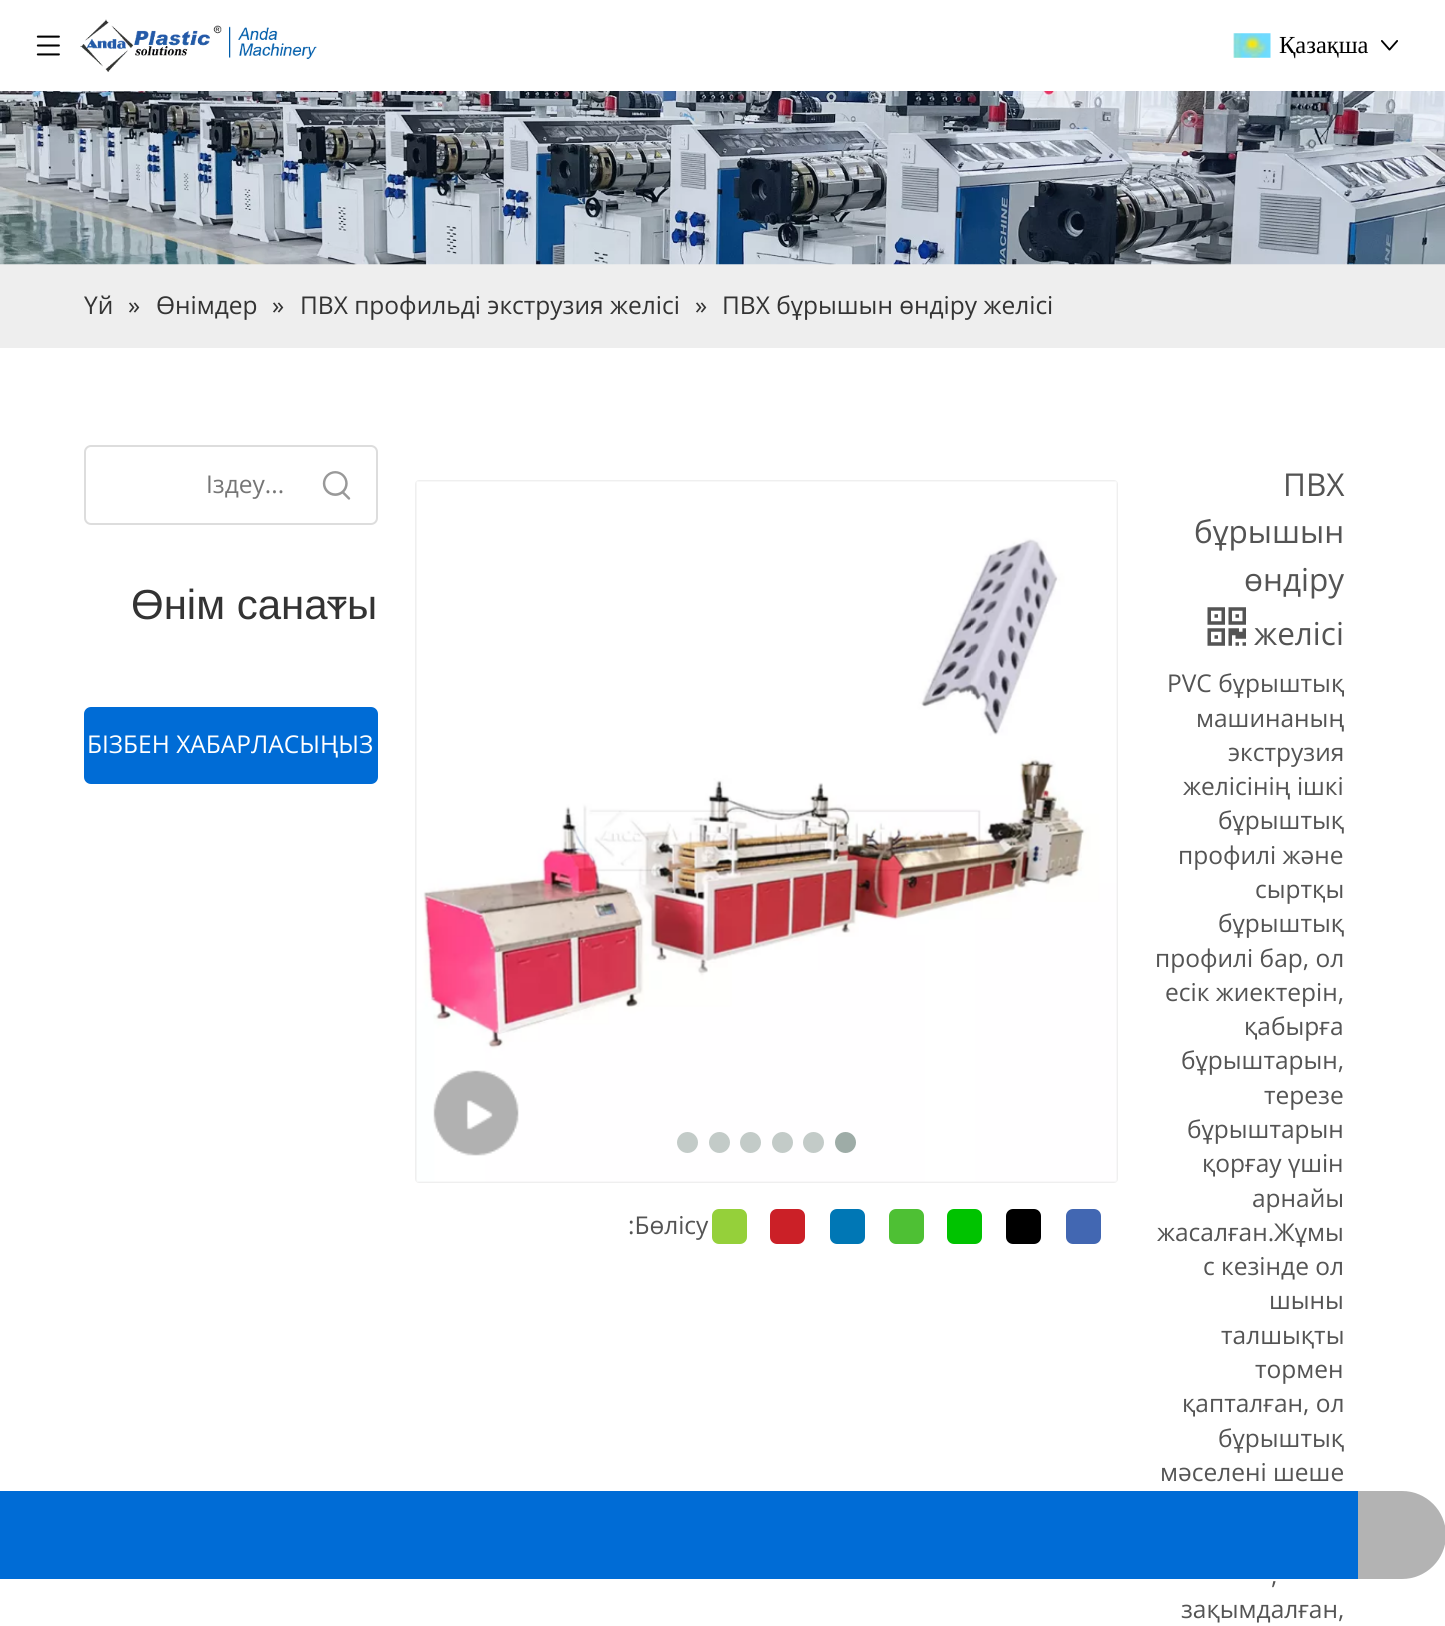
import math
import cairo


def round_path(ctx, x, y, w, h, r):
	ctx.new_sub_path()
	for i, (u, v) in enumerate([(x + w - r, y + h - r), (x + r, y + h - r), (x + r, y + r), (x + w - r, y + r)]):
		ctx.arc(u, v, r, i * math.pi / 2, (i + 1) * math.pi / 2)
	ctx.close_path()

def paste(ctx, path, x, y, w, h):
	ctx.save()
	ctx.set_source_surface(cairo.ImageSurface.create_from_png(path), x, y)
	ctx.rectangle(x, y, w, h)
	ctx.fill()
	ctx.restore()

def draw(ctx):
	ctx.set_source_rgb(1, 1, 1)
	ctx.paint()
	paste(ctx, 'media/1.png', 36, 35, 24, 21)
	paste(ctx, 'media/2.png', 80, 19, 237, 53)
	paste(ctx, 'media/3.png', 1233, 33, 38, 25)
	ctx.select_font_face('Liberation Serif')
	ctx.set_font_size(24.5)
	ctx.set_source_rgb(0, 0, 0)
	ctx.move_to(1279, 53)
	ctx.show_text('Қазақша')
	paste(ctx, 'media/4.png', 1381, 40, 17, 11)
	ctx.set_source_rgb(0.933, 0.933, 0.933)
	ctx.rectangle(0, 264, 1445, 84)
	ctx.fill()
	paste(ctx, 'media/5.png', 0, 91, 1445, 174)
	ctx.select_font_face('Open Sans')
	ctx.set_source_rgb(0.2, 0.2, 0.2)
	for x, y, s in [
		(84, 314, 'Үй'),
		(128, 314, '»'),
		(156, 314, 'Өнімдер'),
		(272, 314, '»'),
		(300, 314, 'ПВХ профильді экструзия желісі'),
		(695, 314, '»'),
		(722, 314, 'ПВХ бұрышын өндіру желісі'),
	]:
		ctx.move_to(x, y)
		ctx.show_text(s)
	round_path(ctx, 85, 446, 292, 78, 6)
	ctx.set_source_rgb(0.867, 0.867, 0.867)
	ctx.stroke()
	ctx.set_source_rgb(0.459, 0.459, 0.459)
	ctx.move_to(206, 493)
	ctx.show_text('Іздеу...')
	paste(ctx, 'media/6.png', 322, 471, 29, 29)
	ctx.select_font_face('Liberation Sans')
	ctx.set_font_size(42)
	ctx.set_source_rgb(0.2, 0.2, 0.2)
	ctx.move_to(131, 619)
	ctx.show_text('Өнім санаты')
	paste(ctx, 'media/7.png', 327, 600, 20, 12)
	ctx.set_source_rgb(0, 0.424, 0.839)
	round_path(ctx, 84, 707, 294, 77, 7)
	ctx.fill()
	ctx.select_font_face('Open Sans')
	ctx.set_font_size(24.5)
	ctx.set_source_rgb(1, 1, 1)
	ctx.move_to(87, 753)
	ctx.show_text('БІЗБЕН ХАБАРЛАСЫҢЫЗ')
	round_path(ctx, 416, 481, 701, 701, 3)
	ctx.set_source_rgb(0.937, 0.937, 0.937)
	ctx.stroke()
	paste(ctx, 'media/8.png', 416, 481, 701, 701)
	ctx.set_source_rgb(0.765, 0.796, 0.784)
	ctx.arc(687.5, 1142.5, 10.5, 0, 2 * math.pi)
	ctx.fill()
	ctx.arc(719.5, 1142.5, 10.5, 0, 2 * math.pi)
	ctx.fill()
	ctx.arc(750.5, 1142.5, 10.5, 0, 2 * math.pi)
	ctx.fill()
	ctx.arc(782.5, 1142.5, 10.5, 0, 2 * math.pi)
	ctx.fill()
	ctx.arc(813.5, 1142.5, 10.5, 0, 2 * math.pi)
	ctx.fill()
	ctx.set_source_rgb(0.62, 0.675, 0.655)
	ctx.arc(845.5, 1142.5, 10.5, 0, 2 * math.pi)
	ctx.fill()
	paste(ctx, 'media/9.png', 433, 1070, 86, 86)
	ctx.set_source_rgb(0.329, 0.329, 0.329)
	ctx.move_to(628, 1234)
	ctx.show_text(':Бөлісу')
	ctx.set_source_rgb(0.584, 0.816, 0.227)
	round_path(ctx, 712, 1209, 35, 35, 7)
	ctx.fill()
	ctx.set_source_rgb(0.796, 0.125, 0.153)
	round_path(ctx, 770, 1209, 35, 35, 7)
	ctx.fill()
	ctx.set_source_rgb(0, 0.467, 0.71)
	round_path(ctx, 830, 1209, 35, 35, 7)
	ctx.fill()
	ctx.set_source_rgb(0.306, 0.753, 0.204)
	round_path(ctx, 889, 1209, 35, 35, 7)
	ctx.fill()
	ctx.set_source_rgb(0, 0.765, 0)
	round_path(ctx, 947, 1209, 35, 35, 7)
	ctx.fill()
	ctx.set_source_rgb(0, 0, 0)
	round_path(ctx, 1006, 1209, 35, 35, 7)
	ctx.fill()
	ctx.set_source_rgb(0.259, 0.404, 0.698)
	round_path(ctx, 1066, 1209, 35, 35, 7)
	ctx.fill()
	ctx.set_font_size(31.5)
	ctx.set_source_rgb(0.329, 0.329, 0.329)
	for x, y, s in [
		(1283, 496, 'ПВХ'),
		(1194, 543, 'бұрышын'),
		(1244, 591, 'өндіру'),
	]:
		ctx.move_to(x, y)
		ctx.show_text(s)
	paste(ctx, 'media/10.png', 1207, 607, 39, 39)
	ctx.move_to(1254, 645)
	ctx.show_text('желісі')
	ctx.set_font_size(24.5)
	for x, y, s in [
		(1167, 692, 'PVC бұрыштық'),
		(1196, 727, 'машинаның'),
		(1228, 761, 'экструзия'),
		(1183, 795, 'желісінің ішкі'),
		(1218, 829, 'бұрыштық'),
		(1178, 864, 'профилі және'),
		(1255, 898, 'сыртқы'),
		(1218, 932, 'бұрыштық'),
		(1155, 967, 'профилі бар, ол'),
		(1165, 1001, 'есік жиектерін,'),
		(1244, 1035, 'қабырға'),
		(1181, 1069, 'бұрыштарын,'),
		(1264, 1104, 'терезе'),
		(1187, 1138, 'бұрыштарын'),
		(1202, 1172, 'қорғау үшін'),
		(1252, 1207, 'арнайы'),
		(1157, 1241, 'жасалған.Жұмы'),
		(1203, 1275, 'с кезінде ол'),
		(1269, 1309, 'шыны'),
		(1221, 1344, 'талшықты'),
		(1255, 1378, 'тормен'),
		(1182, 1412, 'қапталған, ол'),
		(1218, 1447, 'бұрыштық'),
		(1160, 1481, 'мәселені шеше'),
		(1271, 1584, ','),
		(1181, 1618, 'зақымдалған,'),
	]:
		ctx.move_to(x, y)
		ctx.show_text(s)
	ctx.set_source_rgba(0, 0, 0, 0.3)
	round_path(ctx, 0, 1491, 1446, 88, 44)
	ctx.fill()
	ctx.set_source_rgb(0, 0.424, 0.839)
	ctx.rectangle(0, 1491, 1358, 88)
	ctx.fill()


surface = cairo.ImageSurface(cairo.FORMAT_RGB24, 1445, 1626)
ctx = cairo.Context(surface)
options = cairo.FontOptions()
options.set_hint_metrics(cairo.HINT_METRICS_OFF)
options.set_hint_style(cairo.HINT_STYLE_NONE)
ctx.set_font_options(options)
ctx.set_miter_limit(4)
draw(ctx)
surface.write_to_png('image.png')
